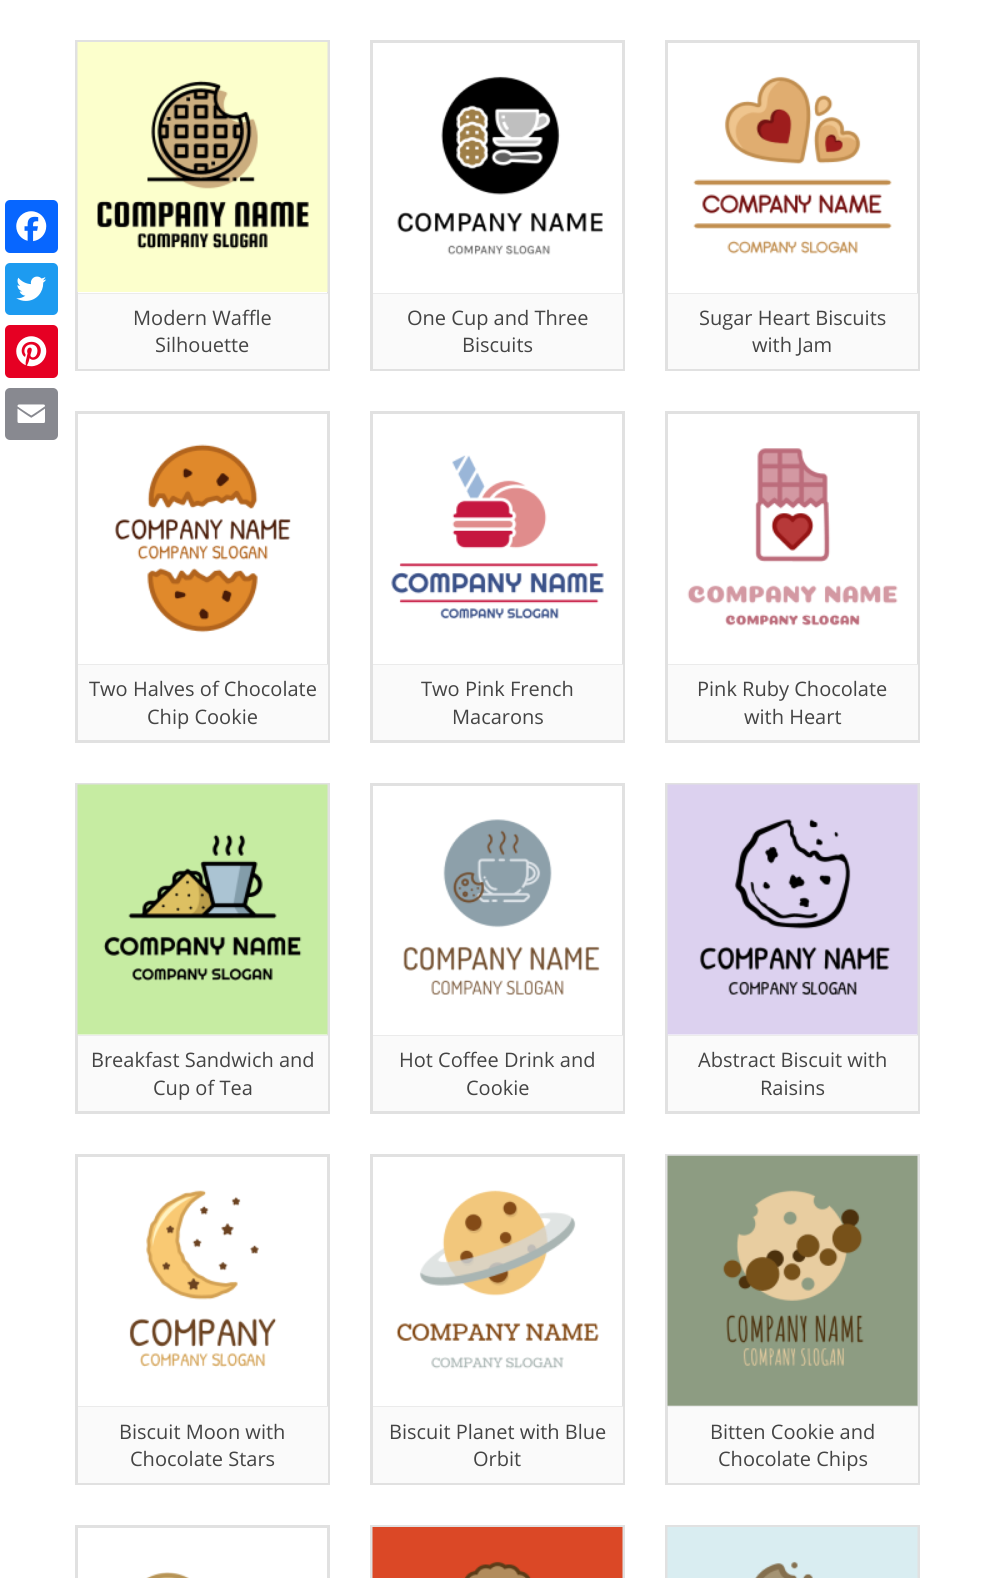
import math
import cairo


def round_path(ctx, x, y, w, h, r):
	ctx.new_sub_path()
	for i, (u, v) in enumerate([(x + w - r, y + h - r), (x + r, y + h - r), (x + r, y + r), (x + w - r, y + r)]):
		ctx.arc(u, v, r, i * math.pi / 2, (i + 1) * math.pi / 2)
	ctx.close_path()

def paste(ctx, path, x, y, w, h):
	ctx.save()
	ctx.set_source_surface(cairo.ImageSurface.create_from_png(path), x, y)
	ctx.rectangle(x, y, w, h)
	ctx.fill()
	ctx.restore()

def draw(ctx):
	ctx.set_source_rgb(1, 1, 1)
	ctx.paint()
	ctx.set_source_rgb(0.031, 0.4, 1)
	round_path(ctx, 5, 200, 53, 53, 5)
	ctx.fill()
	paste(ctx, 'media/1.png', 16, 211, 31, 31)
	ctx.set_source_rgb(0.114, 0.608, 0.941)
	round_path(ctx, 5, 263, 53, 52, 5)
	ctx.fill()
	paste(ctx, 'media/2.png', 16, 276, 31, 25)
	ctx.set_source_rgb(0.902, 0, 0.137)
	round_path(ctx, 5, 325, 53, 53, 5)
	ctx.fill()
	paste(ctx, 'media/3.png', 16, 336, 31, 31)
	ctx.set_source_rgb(0.533, 0.537, 0.565)
	round_path(ctx, 5, 388, 53, 52, 5)
	ctx.fill()
	paste(ctx, 'media/4.png', 17, 404, 28, 19)
	ctx.rectangle(76.5, 41.5, 252, 328)
	ctx.set_source_rgb(0.882, 0.882, 0.882)
	ctx.set_line_width(3)
	ctx.stroke()
	paste(ctx, 'media/5.png', 77, 42, 251, 250)
	ctx.set_source_rgb(0.98, 0.98, 0.98)
	ctx.rectangle(78, 294, 250, 75)
	ctx.fill()
	ctx.set_source_rgb(0.918, 0.918, 0.918)
	ctx.rectangle(78, 293, 250, 1)
	ctx.fill()
	ctx.select_font_face('Open Sans')
	ctx.set_font_size(20)
	ctx.set_source_rgb(0.267, 0.267, 0.267)
	ctx.move_to(133, 325)
	ctx.show_text('Modern Waffle')
	ctx.move_to(155, 352)
	ctx.show_text('Silhouette')
	ctx.rectangle(371.5, 41.5, 252, 328)
	ctx.set_source_rgb(0.882, 0.882, 0.882)
	ctx.stroke()
	paste(ctx, 'media/6.png', 397, 76, 206, 179)
	ctx.set_source_rgb(0.98, 0.98, 0.98)
	ctx.rectangle(373, 294, 250, 75)
	ctx.fill()
	ctx.set_source_rgb(0.918, 0.918, 0.918)
	ctx.rectangle(373, 293, 250, 1)
	ctx.fill()
	ctx.set_source_rgb(0.267, 0.267, 0.267)
	ctx.move_to(407, 325)
	ctx.show_text('One Cup and Three')
	ctx.move_to(462, 352)
	ctx.show_text('Biscuits')
	ctx.rectangle(666.5, 41.5, 252, 328)
	ctx.set_source_rgb(0.882, 0.882, 0.882)
	ctx.stroke()
	paste(ctx, 'media/7.png', 693, 76, 199, 178)
	ctx.set_source_rgb(0.98, 0.98, 0.98)
	ctx.rectangle(668, 294, 250, 75)
	ctx.fill()
	ctx.set_source_rgb(0.918, 0.918, 0.918)
	ctx.rectangle(668, 293, 250, 1)
	ctx.fill()
	ctx.set_source_rgb(0.267, 0.267, 0.267)
	ctx.move_to(699, 325)
	ctx.show_text('Sugar Heart Biscuits')
	ctx.move_to(752, 352)
	ctx.show_text('with Jam')
	ctx.rectangle(76.5, 412.5, 252, 329)
	ctx.set_source_rgb(0.882, 0.882, 0.882)
	ctx.stroke()
	paste(ctx, 'media/8.png', 114, 444, 177, 189)
	ctx.set_source_rgb(0.98, 0.98, 0.98)
	ctx.rectangle(78, 665, 250, 75)
	ctx.fill()
	ctx.set_source_rgb(0.918, 0.918, 0.918)
	ctx.rectangle(78, 664, 250, 1)
	ctx.fill()
	ctx.set_source_rgb(0.267, 0.267, 0.267)
	ctx.move_to(89, 696)
	ctx.show_text('Two Halves of Chocolate')
	ctx.move_to(147, 724)
	ctx.show_text('Chip Cookie')
	ctx.rectangle(371.5, 412.5, 252, 329)
	ctx.set_source_rgb(0.882, 0.882, 0.882)
	ctx.stroke()
	paste(ctx, 'media/9.png', 391, 455, 213, 164)
	ctx.set_source_rgb(0.98, 0.98, 0.98)
	ctx.rectangle(373, 665, 250, 75)
	ctx.fill()
	ctx.set_source_rgb(0.918, 0.918, 0.918)
	ctx.rectangle(373, 664, 250, 1)
	ctx.fill()
	ctx.set_source_rgb(0.267, 0.267, 0.267)
	ctx.move_to(421, 696)
	ctx.show_text('Two Pink French')
	ctx.move_to(452, 724)
	ctx.show_text('Macarons')
	ctx.rectangle(666.5, 412.5, 252, 329)
	ctx.set_source_rgb(0.882, 0.882, 0.882)
	ctx.stroke()
	paste(ctx, 'media/10.png', 687, 448, 211, 178)
	ctx.set_source_rgb(0.98, 0.98, 0.98)
	ctx.rectangle(668, 665, 250, 75)
	ctx.fill()
	ctx.set_source_rgb(0.918, 0.918, 0.918)
	ctx.rectangle(668, 664, 250, 1)
	ctx.fill()
	ctx.set_source_rgb(0.267, 0.267, 0.267)
	ctx.move_to(697, 696)
	ctx.show_text('Pink Ruby Chocolate')
	ctx.move_to(744, 724)
	ctx.show_text('with Heart')
	ctx.rectangle(76.5, 784.5, 252, 328)
	ctx.set_source_rgb(0.882, 0.882, 0.882)
	ctx.stroke()
	paste(ctx, 'media/11.png', 77, 784, 251, 251)
	ctx.set_source_rgb(0.98, 0.98, 0.98)
	ctx.rectangle(78, 1036, 250, 75)
	ctx.fill()
	ctx.set_source_rgb(0.918, 0.918, 0.918)
	ctx.rectangle(78, 1035, 250, 1)
	ctx.fill()
	ctx.set_source_rgb(0.267, 0.267, 0.267)
	ctx.move_to(91, 1067)
	ctx.show_text('Breakfast Sandwich and')
	ctx.move_to(153, 1095)
	ctx.show_text('Cup of Tea')
	ctx.rectangle(371.5, 784.5, 252, 328)
	ctx.set_source_rgb(0.882, 0.882, 0.882)
	ctx.stroke()
	paste(ctx, 'media/12.png', 403, 819, 197, 176)
	ctx.set_source_rgb(0.98, 0.98, 0.98)
	ctx.rectangle(373, 1036, 250, 75)
	ctx.fill()
	ctx.set_source_rgb(0.918, 0.918, 0.918)
	ctx.rectangle(373, 1035, 250, 1)
	ctx.fill()
	ctx.set_source_rgb(0.267, 0.267, 0.267)
	ctx.move_to(399, 1067)
	ctx.show_text('Hot Coffee Drink and')
	ctx.move_to(466, 1095)
	ctx.show_text('Cookie')
	ctx.rectangle(666.5, 784.5, 252, 328)
	ctx.set_source_rgb(0.882, 0.882, 0.882)
	ctx.stroke()
	paste(ctx, 'media/13.png', 667, 784, 251, 251)
	ctx.set_source_rgb(0.98, 0.98, 0.98)
	ctx.rectangle(668, 1036, 250, 75)
	ctx.fill()
	ctx.set_source_rgb(0.918, 0.918, 0.918)
	ctx.rectangle(668, 1035, 250, 1)
	ctx.fill()
	ctx.set_source_rgb(0.267, 0.267, 0.267)
	ctx.move_to(698, 1067)
	ctx.show_text('Abstract Biscuit with')
	ctx.move_to(760, 1095)
	ctx.show_text('Raisins')
	ctx.rectangle(76.5, 1155.5, 252, 328)
	ctx.set_source_rgb(0.882, 0.882, 0.882)
	ctx.stroke()
	paste(ctx, 'media/14.png', 129, 1190, 148, 178)
	ctx.set_source_rgb(0.98, 0.98, 0.98)
	ctx.rectangle(78, 1407, 250, 76)
	ctx.fill()
	ctx.set_source_rgb(0.918, 0.918, 0.918)
	ctx.rectangle(78, 1406, 250, 1)
	ctx.fill()
	ctx.set_source_rgb(0.267, 0.267, 0.267)
	ctx.move_to(119, 1439)
	ctx.show_text('Biscuit Moon with')
	ctx.move_to(130, 1466)
	ctx.show_text('Chocolate Stars')
	ctx.rectangle(371.5, 1155.5, 252, 328)
	ctx.set_source_rgb(0.882, 0.882, 0.882)
	ctx.stroke()
	paste(ctx, 'media/15.png', 396, 1190, 203, 179)
	ctx.set_source_rgb(0.98, 0.98, 0.98)
	ctx.rectangle(373, 1407, 250, 76)
	ctx.fill()
	ctx.set_source_rgb(0.918, 0.918, 0.918)
	ctx.rectangle(373, 1406, 250, 1)
	ctx.fill()
	ctx.set_source_rgb(0.267, 0.267, 0.267)
	ctx.move_to(389, 1439)
	ctx.show_text('Biscuit Planet with Blue')
	ctx.move_to(473, 1466)
	ctx.show_text('Orbit')
	ctx.rectangle(666.5, 1155.5, 252, 328)
	ctx.set_source_rgb(0.882, 0.882, 0.882)
	ctx.stroke()
	paste(ctx, 'media/16.png', 667, 1155, 251, 251)
	ctx.set_source_rgb(0.98, 0.98, 0.98)
	ctx.rectangle(668, 1407, 250, 76)
	ctx.fill()
	ctx.set_source_rgb(0.918, 0.918, 0.918)
	ctx.rectangle(668, 1406, 250, 1)
	ctx.fill()
	ctx.set_source_rgb(0.267, 0.267, 0.267)
	ctx.move_to(710, 1439)
	ctx.show_text('Bitten Cookie and')
	ctx.move_to(718, 1466)
	ctx.show_text('Chocolate Chips')
	ctx.rectangle(76.5, 1526.5, 252, 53)
	ctx.set_source_rgb(0.882, 0.882, 0.882)
	ctx.stroke()
	paste(ctx, 'media/17.png', 146, 1572, 43, 6)
	ctx.rectangle(371.5, 1526.5, 252, 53)
	ctx.stroke()
	paste(ctx, 'media/18.png', 372, 1527, 251, 51)
	ctx.rectangle(666.5, 1526.5, 252, 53)
	ctx.stroke()
	paste(ctx, 'media/19.png', 667, 1527, 251, 51)


surface = cairo.ImageSurface(cairo.FORMAT_RGB24, 994, 1578)
ctx = cairo.Context(surface)
options = cairo.FontOptions()
options.set_hint_metrics(cairo.HINT_METRICS_OFF)
options.set_hint_style(cairo.HINT_STYLE_NONE)
ctx.set_font_options(options)
ctx.set_miter_limit(4)
draw(ctx)
surface.write_to_png('image.png')
